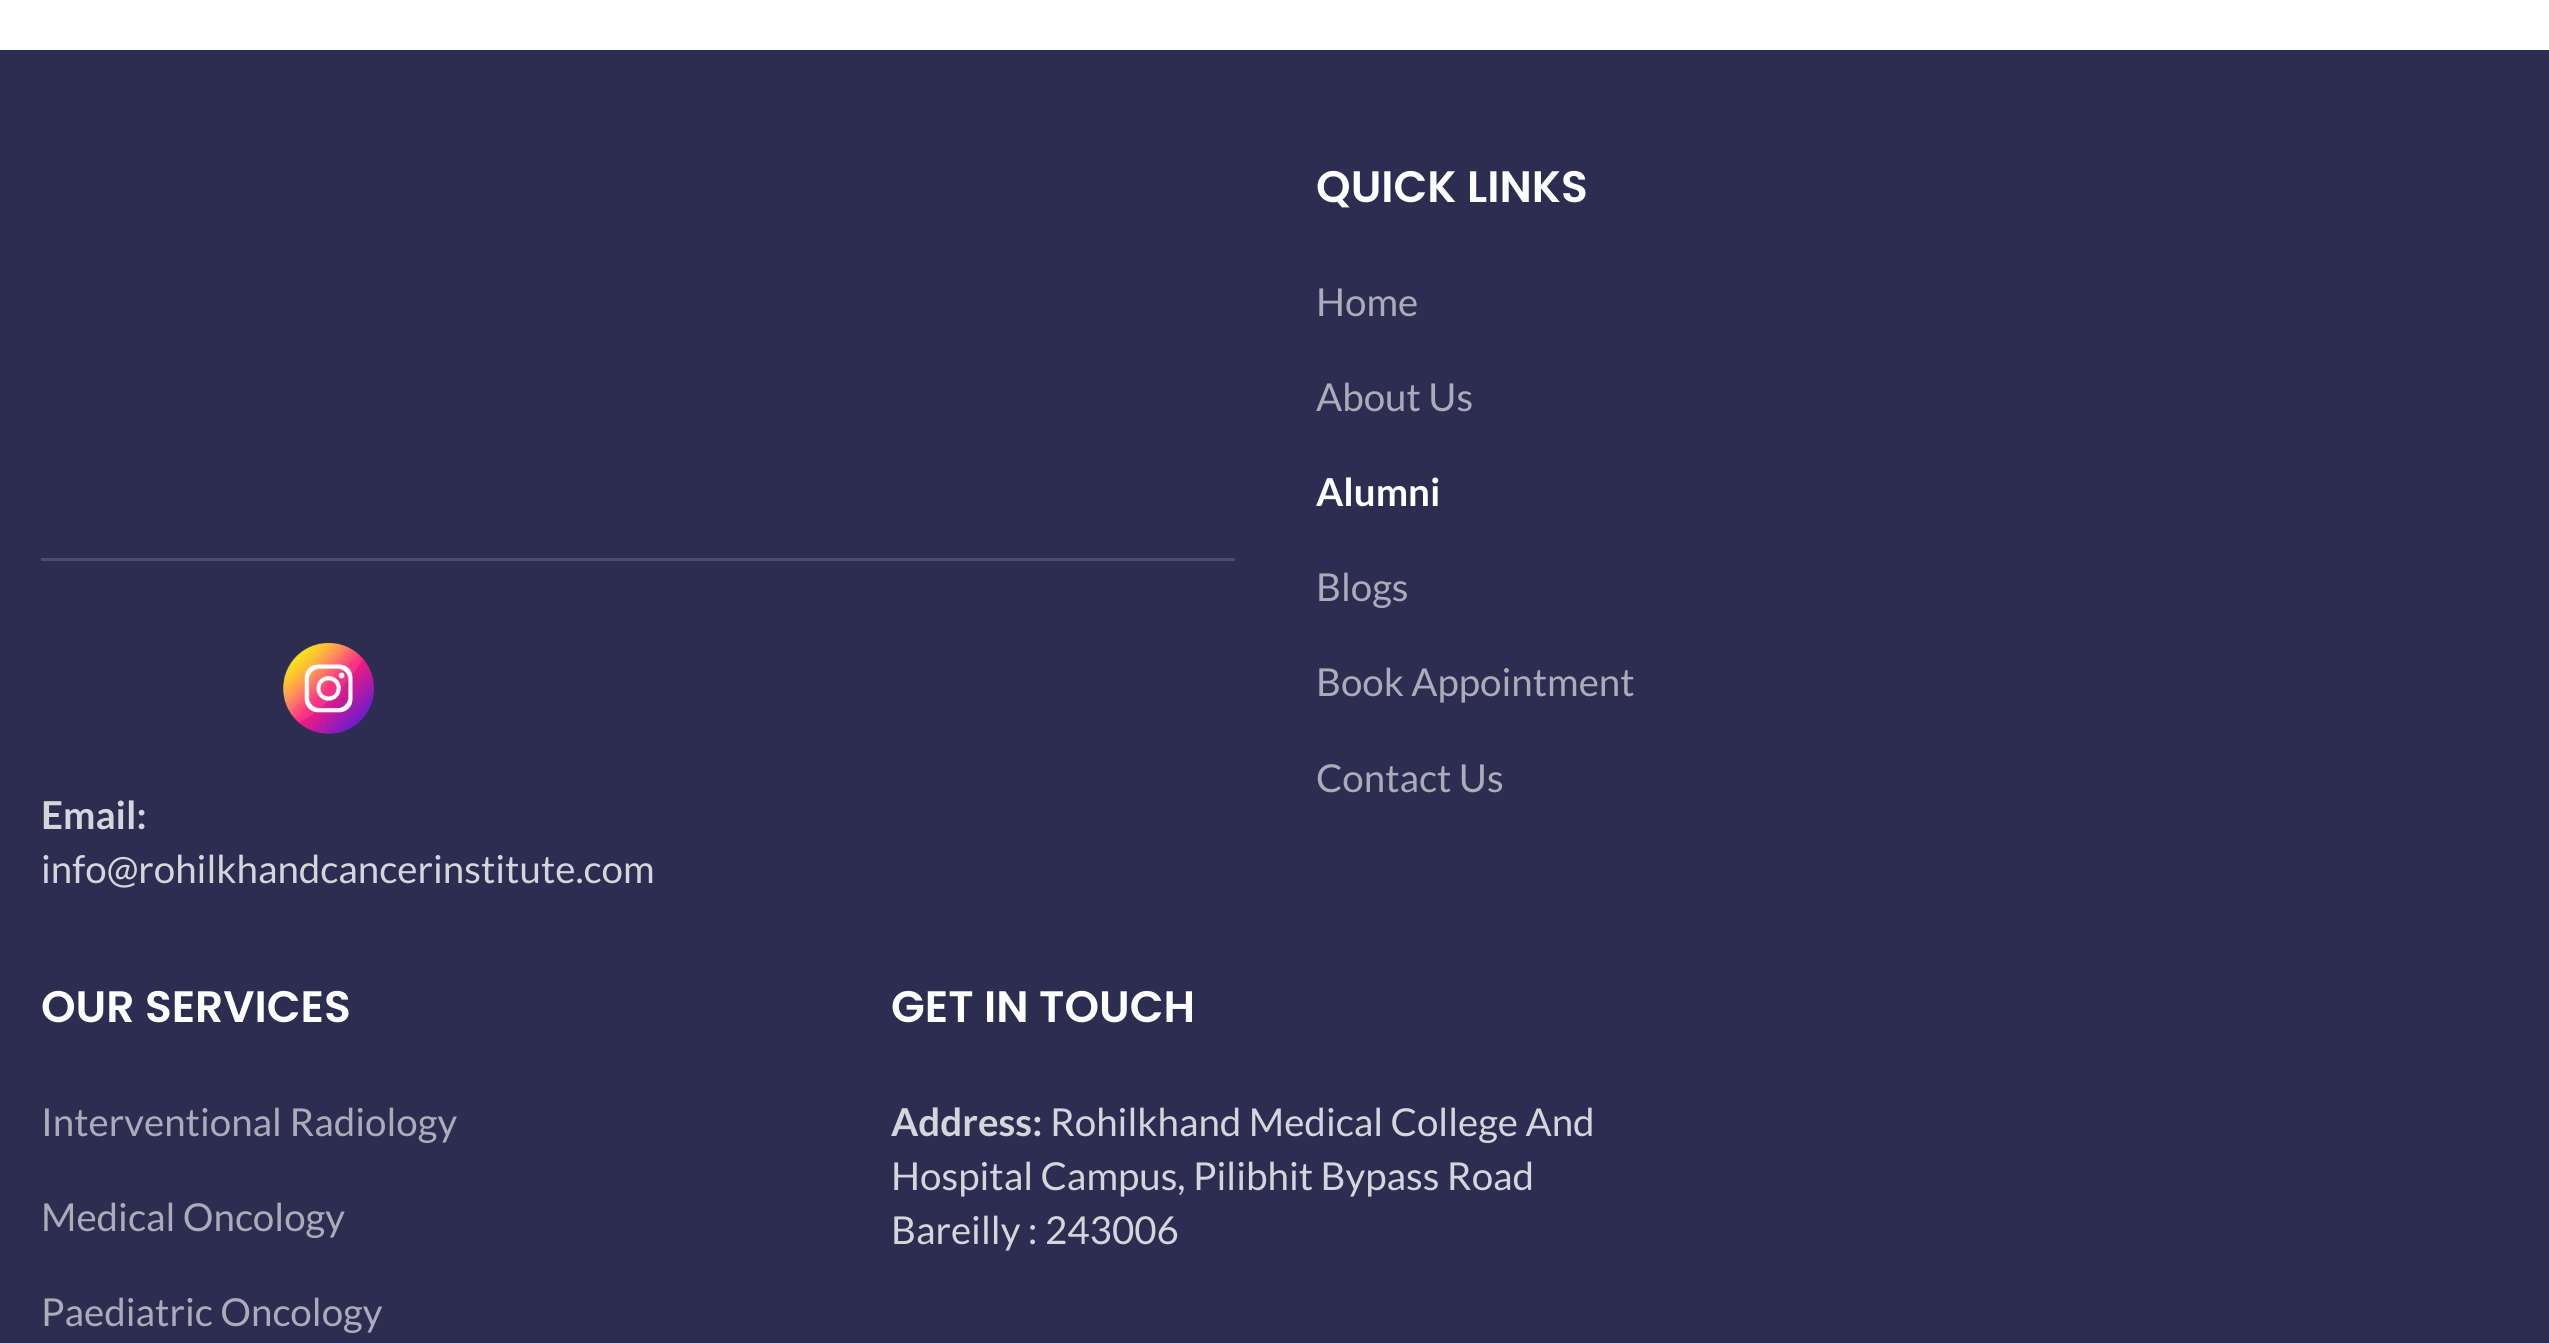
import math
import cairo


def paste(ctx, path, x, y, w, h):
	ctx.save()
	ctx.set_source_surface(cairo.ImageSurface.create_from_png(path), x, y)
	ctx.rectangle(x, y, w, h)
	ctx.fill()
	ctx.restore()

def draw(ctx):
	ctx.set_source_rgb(1, 1, 1)
	ctx.paint()
	ctx.set_source_rgb(0.176, 0.176, 0.318)
	ctx.rectangle(0, 50, 2549, 1293)
	ctx.fill()
	ctx.select_font_face('Poppins SemiBold')
	ctx.set_font_size(44)
	ctx.set_source_rgb(1, 1, 1)
	ctx.move_to(1316, 202)
	ctx.show_text('QUICK LINKS')
	ctx.select_font_face('Lato')
	ctx.set_font_size(38.5)
	ctx.set_source_rgb(0.671, 0.671, 0.725)
	ctx.move_to(1316, 316)
	ctx.show_text('Home')
	ctx.move_to(1316, 411)
	ctx.show_text('About Us')
	ctx.select_font_face('Lato', cairo.FONT_SLANT_NORMAL, cairo.FONT_WEIGHT_BOLD)
	ctx.set_source_rgb(1, 1, 1)
	ctx.move_to(1316, 506)
	ctx.show_text('Alumni')
	ctx.select_font_face('Lato')
	ctx.set_source_rgb(0.671, 0.671, 0.725)
	for x, y, s in [
		(1316, 601, 'Blogs'),
		(1316, 696, 'Book Appointment'),
		(1316, 792, 'Contact Us'),
	]:
		ctx.move_to(x, y)
		ctx.show_text(s)
	ctx.set_source_rgb(0.302, 0.302, 0.42)
	ctx.rectangle(41, 558, 1194, 3)
	ctx.fill()
	paste(ctx, 'media/1.png', 283, 643, 91, 91)
	ctx.select_font_face('Lato', cairo.FONT_SLANT_NORMAL, cairo.FONT_WEIGHT_BOLD)
	ctx.set_source_rgb(0.835, 0.835, 0.863)
	ctx.move_to(41, 829)
	ctx.show_text('Email:')
	ctx.select_font_face('Lato')
	ctx.move_to(41, 883)
	ctx.show_text('info@rohilkhandcancerinstitute.com')
	ctx.select_font_face('Poppins SemiBold')
	ctx.set_font_size(44)
	ctx.set_source_rgb(1, 1, 1)
	ctx.move_to(41, 1022)
	ctx.show_text('OUR SERVICES')
	ctx.select_font_face('Lato')
	ctx.set_font_size(38.5)
	ctx.set_source_rgb(0.671, 0.671, 0.725)
	for x, y, s in [
		(41, 1136, 'Interventional Radiology'),
		(41, 1231, 'Medical Oncology'),
		(41, 1326, 'Paediatric Oncology'),
	]:
		ctx.move_to(x, y)
		ctx.show_text(s)
	ctx.select_font_face('Poppins SemiBold')
	ctx.set_font_size(44)
	ctx.set_source_rgb(1, 1, 1)
	ctx.move_to(891, 1022)
	ctx.show_text('GET IN TOUCH')
	ctx.select_font_face('Lato', cairo.FONT_SLANT_NORMAL, cairo.FONT_WEIGHT_BOLD)
	ctx.set_font_size(38.5)
	ctx.set_source_rgb(0.835, 0.835, 0.863)
	ctx.move_to(891, 1136)
	ctx.show_text('Address:')
	ctx.select_font_face('Lato')
	for x, y, s in [
		(1050, 1136, 'Rohilkhand Medical College And'),
		(891, 1190, 'Hospital Campus, Pilibhit Bypass Road'),
		(891, 1244, 'Bareilly : 243006'),
	]:
		ctx.move_to(x, y)
		ctx.show_text(s)


surface = cairo.ImageSurface(cairo.FORMAT_RGB24, 2549, 1343)
ctx = cairo.Context(surface)
options = cairo.FontOptions()
options.set_hint_metrics(cairo.HINT_METRICS_OFF)
options.set_hint_style(cairo.HINT_STYLE_NONE)
ctx.set_font_options(options)
ctx.set_miter_limit(4)
draw(ctx)
surface.write_to_png('image.png')
